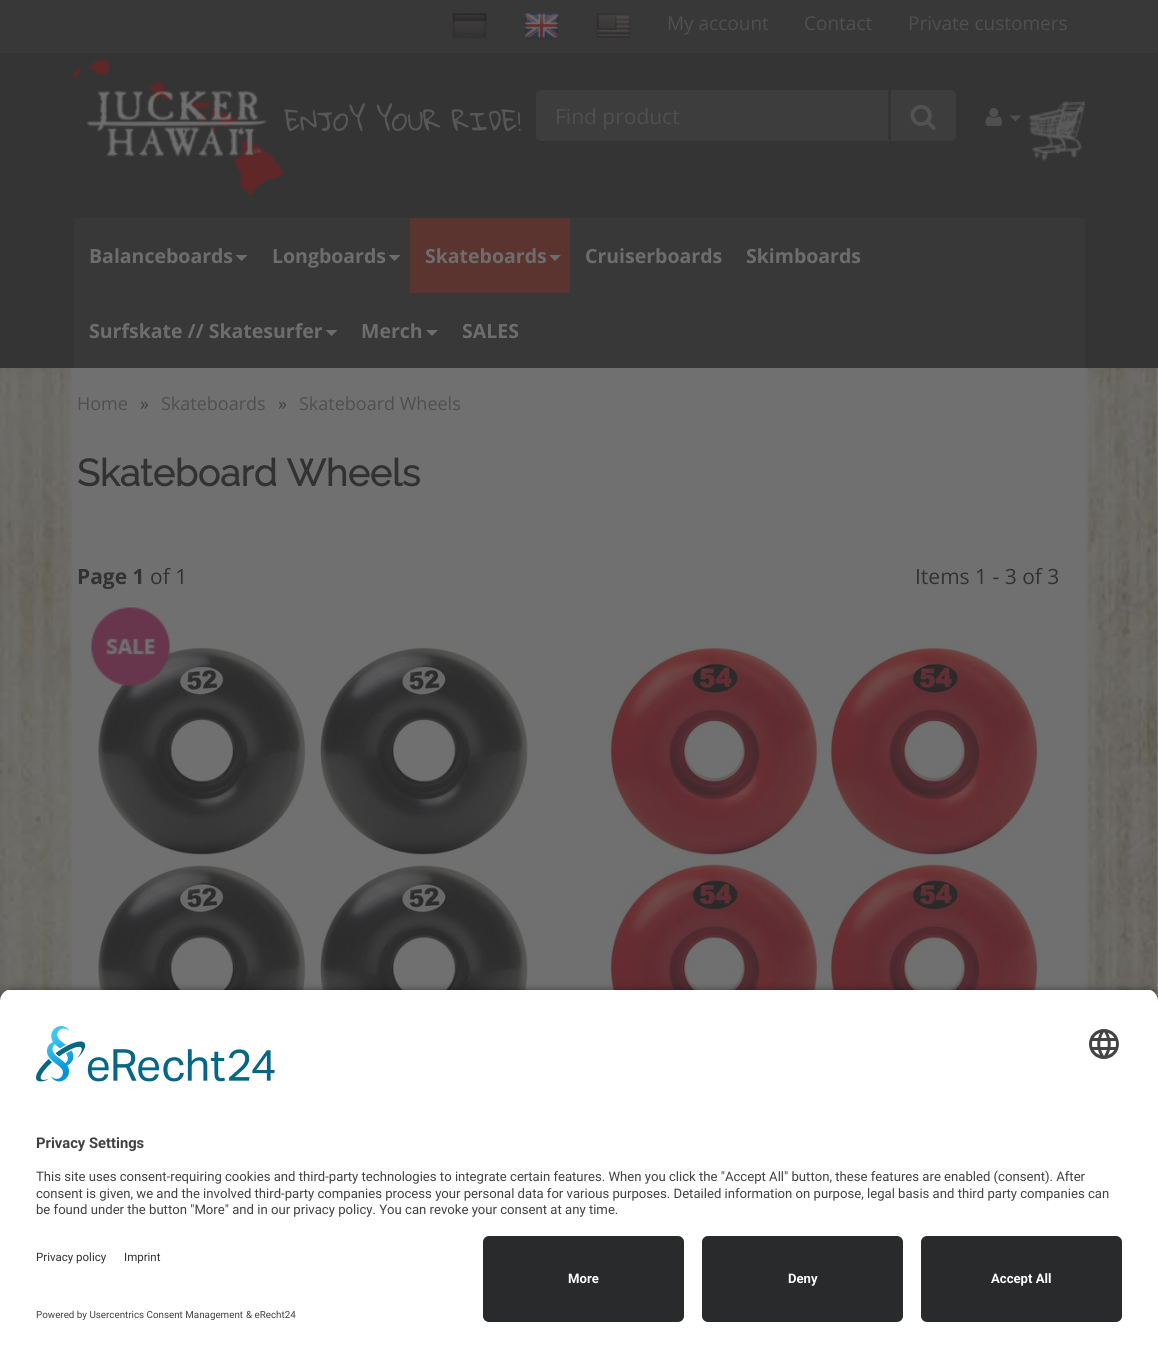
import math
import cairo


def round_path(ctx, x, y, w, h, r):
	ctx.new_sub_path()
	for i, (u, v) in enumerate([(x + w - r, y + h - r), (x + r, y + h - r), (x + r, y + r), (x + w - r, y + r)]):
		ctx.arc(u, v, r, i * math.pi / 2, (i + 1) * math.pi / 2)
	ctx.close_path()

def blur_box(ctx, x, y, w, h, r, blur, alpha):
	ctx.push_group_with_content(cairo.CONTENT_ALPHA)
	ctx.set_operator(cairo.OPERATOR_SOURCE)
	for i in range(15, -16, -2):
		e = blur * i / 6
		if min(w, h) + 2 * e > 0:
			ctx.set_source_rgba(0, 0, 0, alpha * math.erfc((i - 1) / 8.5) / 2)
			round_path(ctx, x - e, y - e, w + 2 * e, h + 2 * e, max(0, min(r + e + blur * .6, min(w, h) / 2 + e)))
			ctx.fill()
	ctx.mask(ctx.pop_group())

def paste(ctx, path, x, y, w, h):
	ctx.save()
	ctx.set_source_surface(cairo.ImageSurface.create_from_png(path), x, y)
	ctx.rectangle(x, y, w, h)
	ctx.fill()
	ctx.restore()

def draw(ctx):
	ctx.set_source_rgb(1, 1, 1)
	ctx.paint()
	paste(ctx, 'media/12.png', 0, 368, 1158, 633)
	ctx.set_source_rgb(0.267, 0.267, 0.267)
	blur_box(ctx, -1, -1, 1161, 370, 0, 4, 0.1)
	ctx.set_source_rgb(0.204, 0.204, 0.204)
	ctx.rectangle(0, 53, 1158, 315)
	ctx.fill()
	ctx.set_source_rgb(0.22, 0.22, 0.22)
	ctx.rectangle(0, 0, 1158, 53)
	ctx.fill()
	paste(ctx, 'media/1.png', 452, 13, 35, 27)
	paste(ctx, 'media/2.png', 524, 13, 35, 27)
	paste(ctx, 'media/3.png', 596, 13, 35, 25)
	ctx.select_font_face('Open Sans')
	ctx.set_font_size(19)
	ctx.set_source_rgb(0.31, 0.31, 0.31)
	for x, y, s in [
		(667, 30, 'My account'),
		(804, 30, 'Contact'),
		(908, 30, 'Private customers'),
	]:
		ctx.move_to(x, y)
		ctx.show_text(s)
	paste(ctx, 'media/4.png', 73, 60, 211, 135)
	ctx.select_font_face('Gloria Hallelujah')
	ctx.set_font_size(25.25)
	ctx.set_source_rgb(0.341, 0.341, 0.341)
	ctx.move_to(284, 131)
	ctx.show_text('ENJOY YOUR RIDE!')
	ctx.set_source_rgb(0.239, 0.239, 0.239)
	ctx.new_path()
	ctx.move_to(542, 92)
	ctx.line_to(888, 92)
	ctx.line_to(888, 140)
	ctx.line_to(542, 140)
	ctx.curve_to(539, 140, 537, 138, 537, 135)
	ctx.line_to(537, 97)
	ctx.curve_to(537, 94, 539, 92, 542, 92)
	ctx.close_path()
	ctx.fill()
	ctx.new_path()
	ctx.move_to(542, 90)
	ctx.curve_to(540, 90, 538, 91, 537, 92)
	ctx.line_to(539, 93)
	ctx.curve_to(539, 92, 541, 92, 542, 92)
	ctx.line_to(887, 92)
	ctx.line_to(891, 90)
	ctx.close_path()
	ctx.fill()
	ctx.new_path()
	ctx.move_to(891, 141)
	ctx.line_to(888, 140)
	ctx.line_to(542, 140)
	ctx.curve_to(540, 140, 539, 139, 538, 138)
	ctx.line_to(537, 139)
	ctx.curve_to(538, 140, 540, 141, 542, 141)
	ctx.close_path()
	ctx.fill()
	ctx.new_path()
	ctx.move_to(537, 92)
	ctx.curve_to(536, 93, 536, 95, 536, 96)
	ctx.line_to(536, 135)
	ctx.curve_to(536, 136, 536, 138, 537, 139)
	ctx.line_to(538, 138)
	ctx.curve_to(537, 137, 537, 136, 537, 135)
	ctx.line_to(537, 96)
	ctx.curve_to(537, 95, 538, 94, 539, 93)
	ctx.close_path()
	ctx.fill()
	ctx.select_font_face('Open Sans')
	ctx.set_font_size(21)
	ctx.set_source_rgb(0.31, 0.31, 0.31)
	ctx.move_to(555, 124)
	ctx.show_text('Find product')
	ctx.set_source_rgb(0.239, 0.239, 0.239)
	ctx.new_path()
	ctx.move_to(891, 90)
	ctx.line_to(950, 90)
	ctx.curve_to(953.5, 90, 956, 92.5, 956, 96)
	ctx.line_to(956, 135)
	ctx.curve_to(956, 138.5, 953.5, 141, 950, 141)
	ctx.line_to(891, 141)
	ctx.close_path()
	ctx.fill()
	paste(ctx, 'media/5.png', 910, 104, 26, 26)
	paste(ctx, 'media/6.png', 985, 108, 17, 18)
	ctx.set_source_rgb(0.31, 0.31, 0.31)
	ctx.new_path()
	ctx.move_to(1009.5, 115.5)
	ctx.line_to(1021.5, 115.5)
	ctx.line_to(1015.5, 121.5)
	ctx.close_path()
	ctx.fill()
	paste(ctx, 'media/7.png', 1029, 100, 56, 61)
	ctx.new_path()
	ctx.move_to(1065, 115.5)
	ctx.line_to(1077, 115.5)
	ctx.line_to(1071, 121.5)
	ctx.close_path()
	ctx.fill()
	ctx.set_source_rgb(0.22, 0.22, 0.22)
	ctx.rectangle(74, 218, 1011, 150)
	ctx.fill()
	ctx.select_font_face('Open Sans', cairo.FONT_SLANT_NORMAL, cairo.FONT_WEIGHT_BOLD)
	ctx.set_font_size(19.5)
	ctx.set_source_rgb(0.427, 0.427, 0.427)
	ctx.move_to(89, 263)
	ctx.show_text('Balanceboards')
	ctx.new_path()
	ctx.move_to(235.5, 255)
	ctx.line_to(247.5, 255)
	ctx.line_to(241.5, 261)
	ctx.close_path()
	ctx.fill()
	ctx.move_to(272, 263)
	ctx.show_text('Longboards')
	ctx.new_path()
	ctx.move_to(388.5, 255)
	ctx.line_to(400.5, 255)
	ctx.line_to(394.5, 261)
	ctx.close_path()
	ctx.fill()
	ctx.set_source_rgb(0.361, 0.204, 0.184)
	ctx.rectangle(410, 218, 160, 75)
	ctx.fill()
	ctx.set_source_rgb(0.427, 0.427, 0.427)
	ctx.move_to(425, 263)
	ctx.show_text('Skateboards')
	ctx.new_path()
	ctx.move_to(549, 255)
	ctx.line_to(561, 255)
	ctx.line_to(555, 261)
	ctx.close_path()
	ctx.fill()
	for x, y, s in [
		(585, 263, 'Cruiserboards'),
		(746, 263, 'Skimboards'),
		(89, 338, 'Surfskate // Skatesurfer'),
	]:
		ctx.move_to(x, y)
		ctx.show_text(s)
	ctx.new_path()
	ctx.move_to(325.5, 330)
	ctx.line_to(337.5, 330)
	ctx.line_to(331.5, 336)
	ctx.close_path()
	ctx.fill()
	ctx.move_to(361, 338)
	ctx.show_text('Merch')
	ctx.new_path()
	ctx.move_to(426, 330)
	ctx.line_to(438, 330)
	ctx.line_to(432, 336)
	ctx.close_path()
	ctx.fill()
	ctx.move_to(462, 338)
	ctx.show_text('SALES')
	paste(ctx, 'media/8.png', 69, 368, 1020, 622)
	ctx.select_font_face('Open Sans')
	ctx.set_font_size(18)
	ctx.set_source_rgb(0.31, 0.31, 0.31)
	ctx.move_to(77, 410)
	ctx.show_text('Home')
	ctx.set_source_rgb(0.255, 0.255, 0.255)
	ctx.move_to(140, 410)
	ctx.show_text('»')
	ctx.set_source_rgb(0.31, 0.31, 0.31)
	ctx.move_to(161, 410)
	ctx.show_text('Skateboards')
	ctx.set_source_rgb(0.255, 0.255, 0.255)
	ctx.move_to(278, 410)
	ctx.show_text('»')
	ctx.set_source_rgb(0.31, 0.31, 0.31)
	ctx.move_to(299, 410)
	ctx.show_text('Skateboard Wheels')
	ctx.select_font_face('Raleway', cairo.FONT_SLANT_NORMAL, cairo.FONT_WEIGHT_BOLD)
	ctx.set_font_size(37.5)
	ctx.set_source_rgb(0.196, 0.196, 0.196)
	ctx.move_to(77, 486)
	ctx.show_text('Skateboard Wheels')
	ctx.select_font_face('Open Sans', cairo.FONT_SLANT_NORMAL, cairo.FONT_WEIGHT_BOLD)
	ctx.set_font_size(21)
	ctx.move_to(77, 584)
	ctx.show_text('Page 1')
	ctx.select_font_face('Open Sans')
	ctx.move_to(150, 584)
	ctx.show_text('of 1')
	ctx.move_to(915, 584)
	ctx.show_text('Items 1 - 3 of 3')
	paste(ctx, 'media/10.png', 97, 647, 431, 343)
	paste(ctx, 'media/9.png', 91, 607, 79, 79)
	paste(ctx, 'media/11.png', 606, 640, 435, 350)
	ctx.set_source_rgb(0, 0, 0)
	blur_box(ctx, 0, 993, 1158, 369, 12, 5, 0.8)
	ctx.save()
	ctx.new_path()
	ctx.move_to(12, 989)
	ctx.line_to(1146, 989)
	ctx.curve_to(1152.5, 989, 1158, 994.5, 1158, 1001)
	ctx.line_to(1158, 1224)
	ctx.line_to(0, 1224)
	ctx.line_to(0, 1001)
	ctx.curve_to(0, 994.5, 5.5, 989, 12, 989)
	ctx.close_path()
	ctx.clip()
	ctx.set_source_rgb(1, 1, 1)
	ctx.rectangle(0, 990, 1158, 234)
	ctx.fill()
	ctx.restore()
	paste(ctx, 'media/13.png', 36, 1026, 239, 56)
	paste(ctx, 'media/14.png', 1089, 1029, 30, 30)
	ctx.select_font_face('Roboto', cairo.FONT_SLANT_NORMAL, cairo.FONT_WEIGHT_BOLD)
	ctx.set_font_size(14.75)
	ctx.set_source_rgb(0.255, 0.255, 0.255)
	ctx.move_to(36, 1148)
	ctx.show_text('Privacy Settings')
	ctx.select_font_face('Roboto')
	ctx.set_font_size(13.12)
	for x, y, s in [
		(36, 1181, 'This site uses consent-requiring cookies and third-party technologies to integrate certain features. When you click the "Accept All" button, these features are enabled (consent). After'),
		(36, 1198, 'consent is given, we and the involved third-party companies process your personal data for various purposes. Detailed information on purpose, legal basis and third party companies can'),
		(36, 1214, 'be found under the button "More" and in our privacy policy. You can revoke your consent at any time.'),
	]:
		ctx.move_to(x, y)
		ctx.show_text(s)
	ctx.set_source_rgb(1, 1, 1)
	ctx.rectangle(0, 1224, 1158, 133)
	ctx.fill()
	ctx.set_font_size(11.5)
	ctx.set_source_rgb(0.196, 0.196, 0.196)
	ctx.move_to(36, 1261)
	ctx.show_text('Privacy policy')
	ctx.move_to(124, 1261)
	ctx.show_text('Imprint')
	ctx.set_font_size(9.8)
	ctx.set_source_rgb(0.255, 0.255, 0.255)
	ctx.move_to(36, 1318)
	ctx.show_text('Powered by Usercentrics Consent Management')
	ctx.move_to(246, 1318)
	ctx.show_text('& eRecht24')
	ctx.set_source_rgb(0.161, 0.165, 0.169)
	round_path(ctx, 483, 1236, 201, 86, 6)
	ctx.fill()
	ctx.select_font_face('Roboto', cairo.FONT_SLANT_NORMAL, cairo.FONT_WEIGHT_BOLD)
	ctx.set_font_size(13.12)
	ctx.set_source_rgb(1, 1, 1)
	ctx.move_to(568, 1283)
	ctx.show_text('More')
	ctx.set_source_rgb(0.161, 0.165, 0.169)
	round_path(ctx, 702, 1236, 201, 86, 6)
	ctx.fill()
	ctx.set_source_rgb(1, 1, 1)
	ctx.move_to(788, 1283)
	ctx.show_text('Deny')
	ctx.set_source_rgb(0.161, 0.165, 0.169)
	round_path(ctx, 921, 1236, 201, 86, 6)
	ctx.fill()
	ctx.set_source_rgb(1, 1, 1)
	ctx.move_to(991, 1283)
	ctx.show_text('Accept All')


surface = cairo.ImageSurface(cairo.FORMAT_RGB24, 1158, 1357)
ctx = cairo.Context(surface)
options = cairo.FontOptions()
options.set_hint_metrics(cairo.HINT_METRICS_OFF)
options.set_hint_style(cairo.HINT_STYLE_NONE)
ctx.set_font_options(options)
ctx.set_miter_limit(4)
draw(ctx)
surface.write_to_png('image.png')
